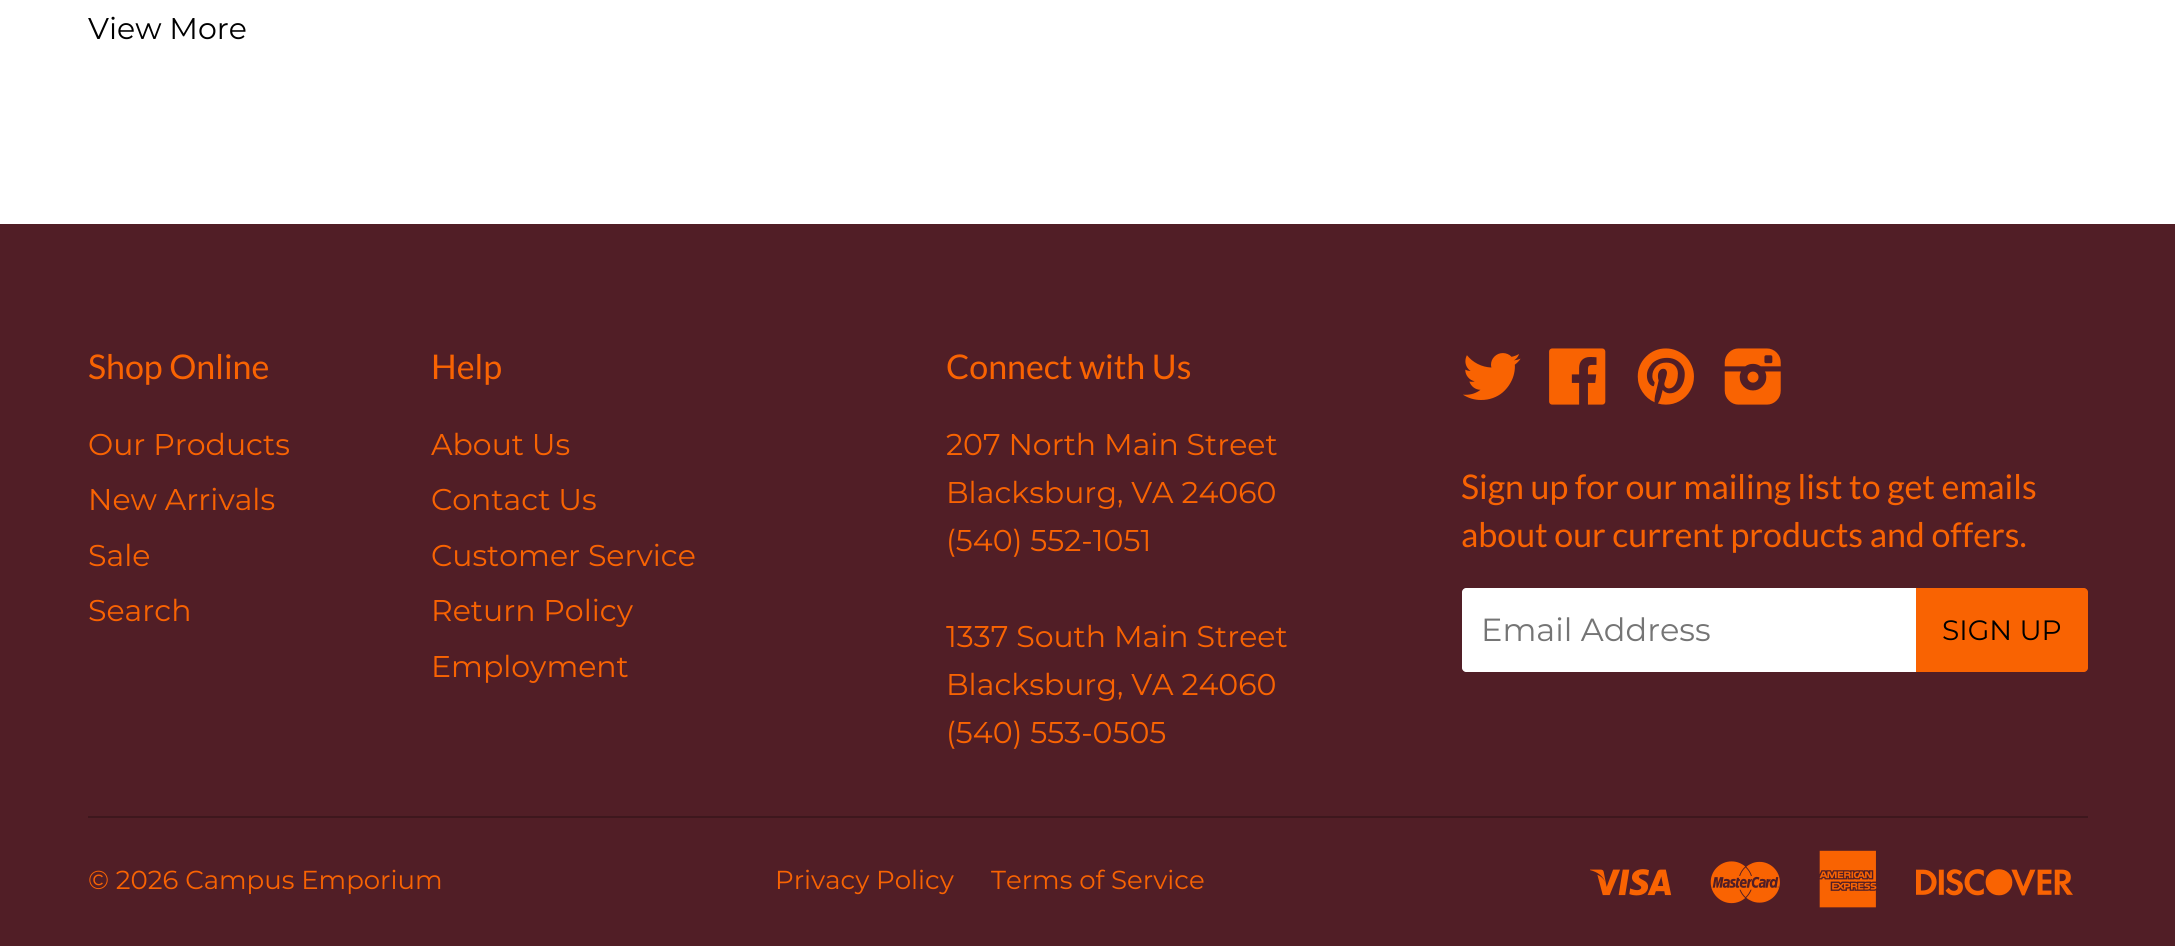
import math
import cairo


def paste(ctx, path, x, y, w, h):
	ctx.save()
	ctx.set_source_surface(cairo.ImageSurface.create_from_png(path), x, y)
	ctx.rectangle(x, y, w, h)
	ctx.fill()
	ctx.restore()

def draw(ctx):
	ctx.set_source_rgb(1, 1, 1)
	ctx.paint()
	ctx.select_font_face('Montserrat')
	ctx.set_font_size(30)
	ctx.set_source_rgb(0, 0, 0)
	ctx.move_to(88, 39)
	ctx.show_text('View More')
	ctx.set_source_rgb(0.318, 0.118, 0.149)
	ctx.rectangle(0, 224, 2175, 722)
	ctx.fill()
	ctx.select_font_face('Lato')
	ctx.set_font_size(34)
	ctx.set_source_rgb(0.976, 0.388, 0.008)
	ctx.move_to(88, 379)
	ctx.show_text('Shop Online')
	ctx.select_font_face('Montserrat')
	ctx.set_font_size(30)
	for x, y, s in [
		(88, 455, 'Our Products'),
		(88, 510, 'New Arrivals'),
		(88, 566, 'Sale'),
		(88, 621, 'Search'),
	]:
		ctx.move_to(x, y)
		ctx.show_text(s)
	ctx.select_font_face('Lato')
	ctx.set_font_size(34)
	ctx.move_to(431, 379)
	ctx.show_text('Help')
	ctx.select_font_face('Montserrat')
	ctx.set_font_size(30)
	for x, y, s in [
		(431, 455, 'About Us'),
		(431, 510, 'Contact Us'),
		(431, 566, 'Customer Service'),
		(431, 621, 'Return Policy'),
		(431, 677, 'Employment'),
	]:
		ctx.move_to(x, y)
		ctx.show_text(s)
	ctx.select_font_face('Lato')
	ctx.set_font_size(34)
	ctx.move_to(946, 379)
	ctx.show_text('Connect with Us')
	ctx.select_font_face('Montserrat')
	ctx.set_font_size(30)
	for x, y, s in [
		(946, 455, '207 North Main Street'),
		(946, 503, 'Blacksburg, VA 24060'),
		(946, 551, '(540) 552-1051'),
		(946, 647, '1337 South Main Street'),
		(946, 695, 'Blacksburg, VA 24060'),
		(946, 743, '(540) 553-0505'),
	]:
		ctx.move_to(x, y)
		ctx.show_text(s)
	paste(ctx, 'media/1.png', 1463, 353, 58, 47)
	paste(ctx, 'media/2.png', 1549, 348, 57, 57)
	paste(ctx, 'media/3.png', 1637, 348, 57, 57)
	paste(ctx, 'media/4.png', 1724, 348, 57, 57)
	ctx.select_font_face('Lato')
	ctx.set_font_size(34)
	ctx.move_to(1461, 499)
	ctx.show_text('Sign up for our mailing list to get emails')
	ctx.move_to(1461, 547)
	ctx.show_text('about our current products and offers.')
	ctx.set_source_rgb(1, 1, 1)
	ctx.new_path()
	ctx.move_to(1466, 588)
	ctx.line_to(1916, 588)
	ctx.line_to(1916, 672)
	ctx.line_to(1466, 672)
	ctx.curve_to(1464, 672, 1462, 670, 1462, 668)
	ctx.line_to(1462, 592)
	ctx.curve_to(1462, 590, 1464, 588, 1466, 588)
	ctx.close_path()
	ctx.fill()
	ctx.select_font_face('Montserrat')
	ctx.set_font_size(32)
	ctx.set_source_rgb(0.459, 0.459, 0.459)
	ctx.move_to(1481, 641)
	ctx.show_text('Email Address')
	ctx.set_source_rgb(0.976, 0.388, 0.008)
	ctx.new_path()
	ctx.move_to(1916, 588)
	ctx.line_to(2084, 588)
	ctx.curve_to(2086, 588, 2088, 590, 2088, 592)
	ctx.line_to(2088, 668)
	ctx.curve_to(2088, 670, 2086, 672, 2084, 672)
	ctx.line_to(1916, 672)
	ctx.close_path()
	ctx.fill()
	ctx.set_font_size(28)
	ctx.set_source_rgb(0, 0, 0)
	ctx.move_to(1942, 640)
	ctx.show_text('SIGN UP')
	ctx.set_source_rgb(0.243, 0.09, 0.114)
	ctx.rectangle(88, 816, 2000, 2)
	ctx.fill()
	ctx.set_font_size(26)
	ctx.set_source_rgb(0.976, 0.388, 0.008)
	for x, y, s in [
		(88, 889, '© 2026 Campus Emporium'),
		(775, 889, 'Privacy Policy'),
		(991, 889, 'Terms of Service'),
	]:
		ctx.move_to(x, y)
		ctx.show_text(s)
	paste(ctx, 'media/5.png', 1590, 869, 82, 27)
	paste(ctx, 'media/6.png', 1710, 861, 70, 43)
	paste(ctx, 'media/7.png', 1819, 850, 58, 58)
	paste(ctx, 'media/8.png', 1916, 869, 157, 27)


surface = cairo.ImageSurface(cairo.FORMAT_RGB24, 2175, 946)
ctx = cairo.Context(surface)
options = cairo.FontOptions()
options.set_hint_metrics(cairo.HINT_METRICS_OFF)
options.set_hint_style(cairo.HINT_STYLE_NONE)
ctx.set_font_options(options)
ctx.set_miter_limit(4)
draw(ctx)
surface.write_to_png('image.png')
